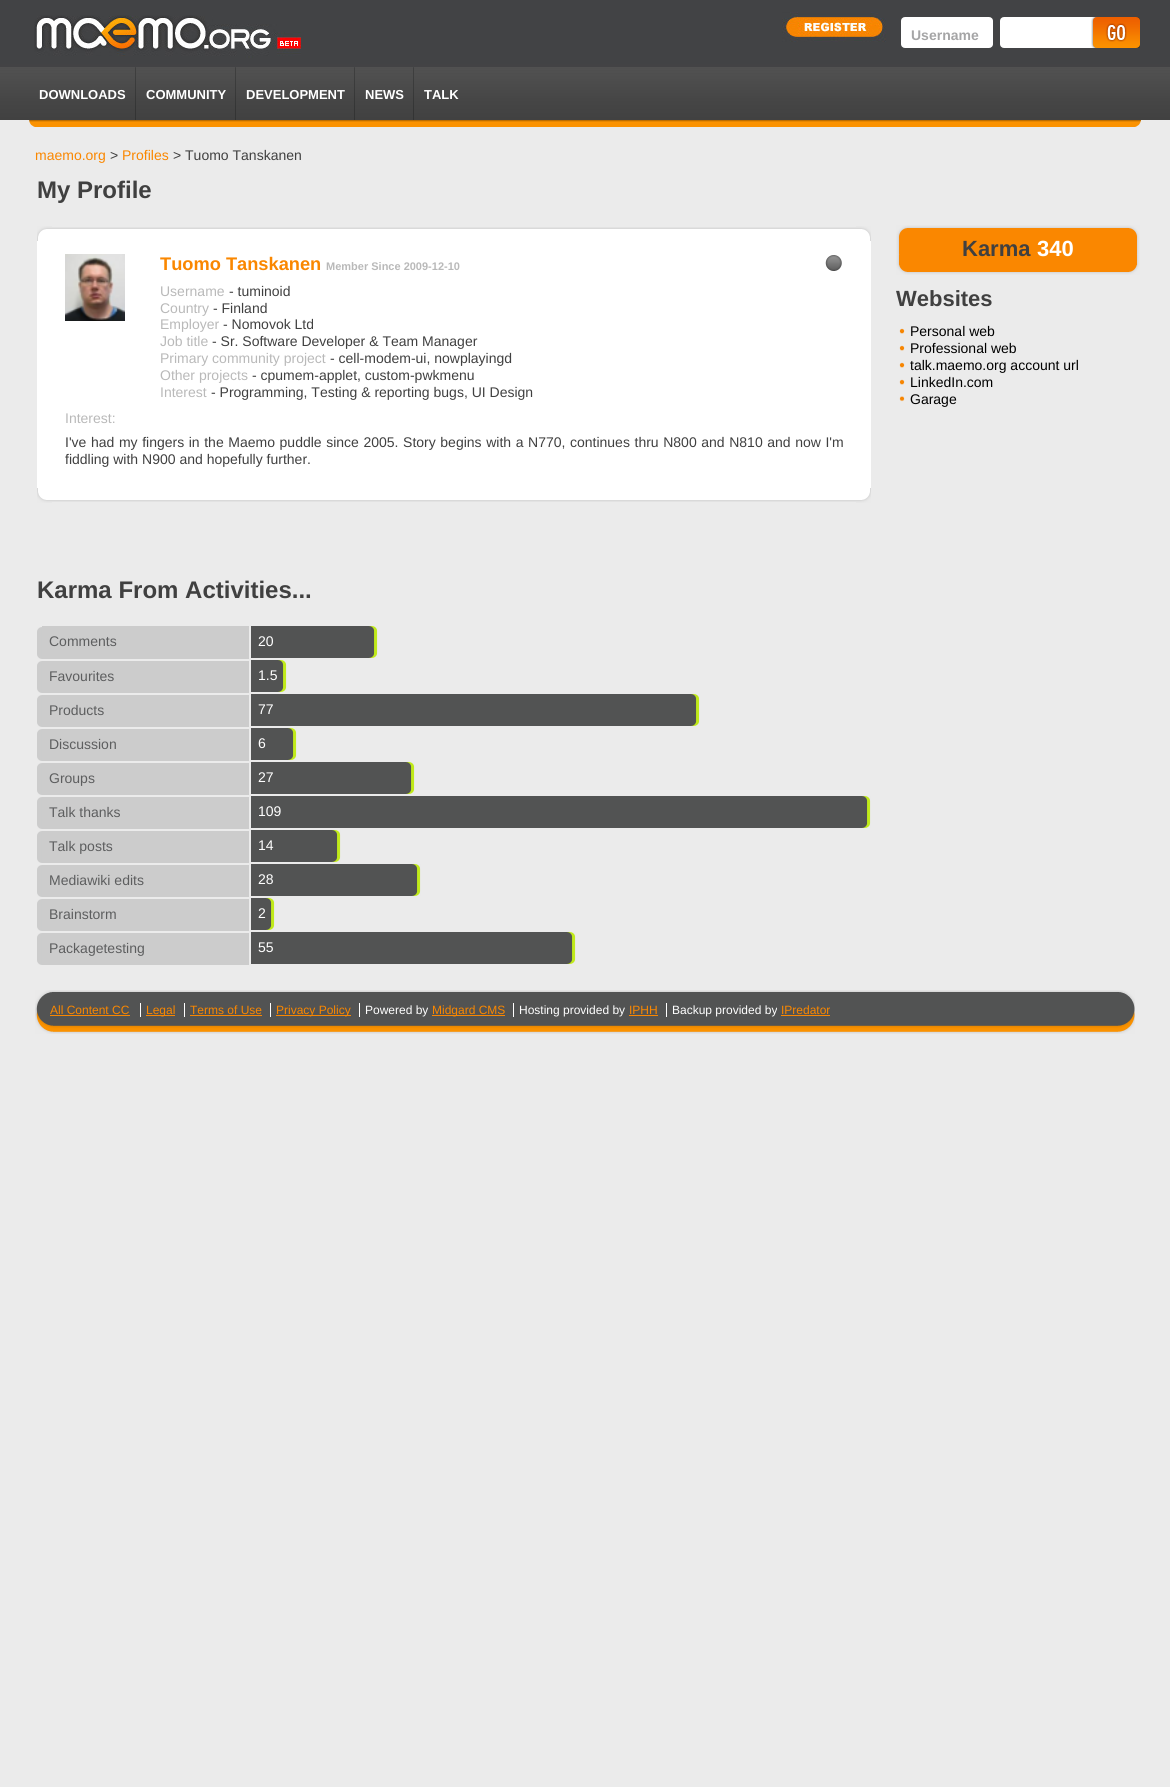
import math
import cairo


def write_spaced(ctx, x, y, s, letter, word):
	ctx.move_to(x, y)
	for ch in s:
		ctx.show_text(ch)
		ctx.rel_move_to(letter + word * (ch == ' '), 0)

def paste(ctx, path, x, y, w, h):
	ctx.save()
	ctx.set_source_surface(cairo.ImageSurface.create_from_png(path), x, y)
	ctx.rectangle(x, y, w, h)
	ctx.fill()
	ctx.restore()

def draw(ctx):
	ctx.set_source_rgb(0.918, 0.918, 0.918)
	ctx.paint()
	paste(ctx, 'media/1.png', 0, 0, 1170, 120)
	paste(ctx, 'media/2.png', 34, 15, 267, 43)
	paste(ctx, 'media/3.png', 782, 12, 104, 30)
	paste(ctx, 'media/4.png', 901, 17, 92, 31)
	ctx.select_font_face('Liberation Sans', cairo.FONT_SLANT_NORMAL, cairo.FONT_WEIGHT_BOLD)
	ctx.set_font_size(14)
	ctx.set_source_rgb(0.647, 0.647, 0.651)
	ctx.move_to(911, 40)
	ctx.show_text('Username')
	paste(ctx, 'media/5.png', 1000, 17, 91, 31)
	paste(ctx, 'media/6.png', 1091, 17, 49, 31)
	paste(ctx, 'media/7.png', 35, 120, 1106, 7)
	paste(ctx, 'media/8.png', 29, 120, 6, 7)
	paste(ctx, 'media/9.png', 1135, 121, 6, 6)
	paste(ctx, 'media/10.png', 135, 67, 1, 53)
	ctx.set_font_size(13)
	ctx.set_source_rgb(1, 1, 1)
	ctx.move_to(39, 99)
	ctx.show_text('DOWNLOADS')
	paste(ctx, 'media/10.png', 235, 67, 1, 53)
	ctx.move_to(146, 99)
	ctx.show_text('COMMUNITY')
	paste(ctx, 'media/10.png', 354, 67, 1, 53)
	ctx.move_to(246, 99)
	ctx.show_text('DEVELOPMENT')
	paste(ctx, 'media/10.png', 413, 67, 1, 53)
	ctx.move_to(365, 99)
	ctx.show_text('NEWS')
	ctx.move_to(424, 99)
	ctx.show_text('TALK')
	ctx.select_font_face('Liberation Sans')
	ctx.set_font_size(14)
	ctx.set_source_rgb(0.98, 0.529, 0)
	ctx.move_to(35, 160)
	ctx.show_text('maemo.org')
	ctx.set_source_rgb(0.251, 0.251, 0.251)
	ctx.move_to(110, 160)
	ctx.show_text('>')
	ctx.set_source_rgb(0.98, 0.529, 0)
	ctx.move_to(122, 160)
	ctx.show_text('Profiles')
	ctx.set_source_rgb(0.251, 0.251, 0.251)
	ctx.move_to(173, 160)
	ctx.show_text('> Tuomo Tanskanen')
	ctx.select_font_face('Liberation Sans', cairo.FONT_SLANT_NORMAL, cairo.FONT_WEIGHT_BOLD)
	ctx.set_font_size(24)
	ctx.move_to(37, 198)
	ctx.show_text('My Profile')
	paste(ctx, 'media/11.png', 52, 227, 804, 13)
	paste(ctx, 'media/12.png', 52, 489, 804, 13)
	ctx.set_source_rgb(1, 1, 1)
	ctx.rectangle(37, 241, 14, 247)
	ctx.fill()
	ctx.rectangle(857, 241, 14, 247)
	ctx.fill()
	paste(ctx, 'media/13.png', 37, 226, 15, 15)
	paste(ctx, 'media/14.png', 856, 226, 15, 15)
	paste(ctx, 'media/15.png', 37, 488, 15, 15)
	paste(ctx, 'media/16.png', 856, 488, 15, 15)
	ctx.rectangle(51, 240, 806, 249)
	ctx.fill()
	paste(ctx, 'media/17.png', 65, 254, 60, 67)
	ctx.set_font_size(18.25)
	ctx.set_source_rgb(0.98, 0.529, 0)
	ctx.move_to(160, 270)
	ctx.show_text('Tuomo Tanskanen')
	ctx.set_font_size(11)
	ctx.set_source_rgb(0.725, 0.725, 0.725)
	ctx.move_to(326, 270)
	ctx.show_text('Member Since 2009-12-10')
	paste(ctx, 'media/18.png', 825, 255, 17, 16)
	ctx.select_font_face('Liberation Sans')
	ctx.set_font_size(14)
	ctx.move_to(160, 296)
	ctx.show_text('Username')
	ctx.set_source_rgb(0.251, 0.251, 0.251)
	ctx.move_to(229, 296)
	ctx.show_text('- tuminoid')
	ctx.set_source_rgb(0.725, 0.725, 0.725)
	ctx.move_to(160, 313)
	ctx.show_text('Country')
	ctx.set_source_rgb(0.251, 0.251, 0.251)
	ctx.move_to(213, 313)
	ctx.show_text('- Finland')
	ctx.set_source_rgb(0.725, 0.725, 0.725)
	ctx.move_to(160, 329)
	ctx.show_text('Employer')
	ctx.set_source_rgb(0.251, 0.251, 0.251)
	ctx.move_to(223, 329)
	ctx.show_text('- Nomovok Ltd')
	ctx.set_source_rgb(0.725, 0.725, 0.725)
	ctx.move_to(160, 346)
	ctx.show_text('Job title')
	ctx.set_source_rgb(0.251, 0.251, 0.251)
	ctx.move_to(212, 346)
	ctx.show_text('- Sr. Software Developer & Team Manager')
	ctx.set_source_rgb(0.725, 0.725, 0.725)
	ctx.move_to(160, 363)
	ctx.show_text('Primary community project')
	ctx.set_source_rgb(0.251, 0.251, 0.251)
	ctx.move_to(330, 363)
	ctx.show_text('- cell-modem-ui, nowplayingd')
	ctx.set_source_rgb(0.725, 0.725, 0.725)
	ctx.move_to(160, 380)
	ctx.show_text('Other projects')
	ctx.set_source_rgb(0.251, 0.251, 0.251)
	ctx.move_to(252, 380)
	ctx.show_text('- cpumem-applet, custom-pwkmenu')
	ctx.set_source_rgb(0.725, 0.725, 0.725)
	ctx.move_to(160, 397)
	ctx.show_text('Interest')
	ctx.set_source_rgb(0.251, 0.251, 0.251)
	ctx.move_to(211, 397)
	ctx.show_text('- Programming, Testing & reporting bugs, UI Design')
	ctx.set_source_rgb(0.725, 0.725, 0.725)
	ctx.move_to(65, 423)
	ctx.show_text('Interest:')
	ctx.set_source_rgb(0.251, 0.251, 0.251)
	write_spaced(ctx, 65, 447, 'I\'ve had my fingers in the Maemo puddle since 2005. Story begins with a N770, continues thru N800 and N810 and now I\'m', 0, 0.7)
	ctx.move_to(65, 464)
	ctx.show_text('fiddling with N900 and hopefully further.')
	ctx.select_font_face('Liberation Sans', cairo.FONT_SLANT_NORMAL, cairo.FONT_WEIGHT_BOLD)
	ctx.set_font_size(24)
	ctx.move_to(37, 598)
	ctx.show_text('Karma From Activities...')
	paste(ctx, 'media/19.png', 37, 627, 5, 32)
	ctx.set_source_rgb(0.8, 0.8, 0.8)
	ctx.rectangle(42, 626, 207, 33)
	ctx.fill()
	ctx.select_font_face('Liberation Sans')
	ctx.set_font_size(14)
	ctx.set_source_rgb(0.365, 0.369, 0.373)
	ctx.move_to(49, 646)
	ctx.show_text('Comments')
	ctx.set_source_rgb(0.322, 0.325, 0.325)
	ctx.rectangle(251, 626, 118, 32)
	ctx.fill()
	ctx.set_source_rgb(1, 1, 1)
	ctx.move_to(258, 646)
	ctx.show_text('20')
	paste(ctx, 'media/20.png', 369, 626, 9, 32)
	paste(ctx, 'media/19.png', 37, 661, 5, 32)
	ctx.set_source_rgb(0.8, 0.8, 0.8)
	ctx.rectangle(42, 661, 207, 32)
	ctx.fill()
	ctx.set_source_rgb(0.365, 0.369, 0.373)
	ctx.move_to(49, 681)
	ctx.show_text('Favourites')
	ctx.set_source_rgb(0.322, 0.325, 0.325)
	ctx.rectangle(251, 660, 27, 32)
	ctx.fill()
	ctx.set_source_rgb(1, 1, 1)
	ctx.move_to(258, 680)
	ctx.show_text('1.5')
	paste(ctx, 'media/20.png', 278, 660, 9, 32)
	paste(ctx, 'media/19.png', 37, 695, 5, 32)
	ctx.set_source_rgb(0.8, 0.8, 0.8)
	ctx.rectangle(42, 695, 207, 32)
	ctx.fill()
	ctx.set_source_rgb(0.365, 0.369, 0.373)
	ctx.move_to(49, 715)
	ctx.show_text('Products')
	ctx.set_source_rgb(0.322, 0.325, 0.325)
	ctx.rectangle(251, 694, 440, 32)
	ctx.fill()
	ctx.set_source_rgb(1, 1, 1)
	ctx.move_to(258, 714)
	ctx.show_text('77')
	paste(ctx, 'media/20.png', 691, 694, 9, 32)
	paste(ctx, 'media/19.png', 37, 729, 5, 32)
	ctx.set_source_rgb(0.8, 0.8, 0.8)
	ctx.rectangle(42, 729, 207, 32)
	ctx.fill()
	ctx.set_source_rgb(0.365, 0.369, 0.373)
	ctx.move_to(49, 749)
	ctx.show_text('Discussion')
	ctx.set_source_rgb(0.322, 0.325, 0.325)
	ctx.rectangle(251, 728, 37, 32)
	ctx.fill()
	ctx.set_source_rgb(1, 1, 1)
	ctx.move_to(258, 748)
	ctx.show_text('6')
	paste(ctx, 'media/20.png', 288, 728, 9, 32)
	paste(ctx, 'media/19.png', 37, 763, 5, 32)
	ctx.set_source_rgb(0.8, 0.8, 0.8)
	ctx.rectangle(42, 763, 207, 32)
	ctx.fill()
	ctx.set_source_rgb(0.365, 0.369, 0.373)
	ctx.move_to(49, 783)
	ctx.show_text('Groups')
	ctx.set_source_rgb(0.322, 0.325, 0.325)
	ctx.rectangle(251, 762, 155, 32)
	ctx.fill()
	ctx.set_source_rgb(1, 1, 1)
	ctx.move_to(258, 782)
	ctx.show_text('27')
	paste(ctx, 'media/20.png', 406, 762, 9, 32)
	paste(ctx, 'media/19.png', 37, 797, 5, 32)
	ctx.set_source_rgb(0.8, 0.8, 0.8)
	ctx.rectangle(42, 797, 207, 32)
	ctx.fill()
	ctx.set_source_rgb(0.365, 0.369, 0.373)
	ctx.move_to(49, 817)
	ctx.show_text('Talk thanks')
	ctx.set_source_rgb(0.322, 0.325, 0.325)
	ctx.rectangle(251, 796, 611, 32)
	ctx.fill()
	ctx.set_source_rgb(1, 1, 1)
	ctx.move_to(258, 816)
	ctx.show_text('109')
	paste(ctx, 'media/20.png', 862, 796, 9, 32)
	paste(ctx, 'media/19.png', 37, 831, 5, 32)
	ctx.set_source_rgb(0.8, 0.8, 0.8)
	ctx.rectangle(42, 831, 207, 32)
	ctx.fill()
	ctx.set_source_rgb(0.365, 0.369, 0.373)
	ctx.move_to(49, 851)
	ctx.show_text('Talk posts')
	ctx.set_source_rgb(0.322, 0.325, 0.325)
	ctx.rectangle(251, 830, 81, 32)
	ctx.fill()
	ctx.set_source_rgb(1, 1, 1)
	ctx.move_to(258, 850)
	ctx.show_text('14')
	paste(ctx, 'media/20.png', 332, 830, 9, 32)
	paste(ctx, 'media/19.png', 37, 865, 5, 32)
	ctx.set_source_rgb(0.8, 0.8, 0.8)
	ctx.rectangle(42, 865, 207, 32)
	ctx.fill()
	ctx.set_source_rgb(0.365, 0.369, 0.373)
	ctx.move_to(49, 885)
	ctx.show_text('Mediawiki edits')
	ctx.set_source_rgb(0.322, 0.325, 0.325)
	ctx.rectangle(251, 864, 161, 32)
	ctx.fill()
	ctx.set_source_rgb(1, 1, 1)
	ctx.move_to(258, 884)
	ctx.show_text('28')
	paste(ctx, 'media/20.png', 412, 864, 9, 32)
	paste(ctx, 'media/19.png', 37, 899, 5, 32)
	ctx.set_source_rgb(0.8, 0.8, 0.8)
	ctx.rectangle(42, 899, 207, 32)
	ctx.fill()
	ctx.set_source_rgb(0.365, 0.369, 0.373)
	ctx.move_to(49, 919)
	ctx.show_text('Brainstorm')
	ctx.set_source_rgb(0.322, 0.325, 0.325)
	ctx.rectangle(251, 898, 15, 32)
	ctx.fill()
	ctx.set_source_rgb(1, 1, 1)
	ctx.move_to(258, 918)
	ctx.show_text('2')
	paste(ctx, 'media/20.png', 266, 898, 9, 32)
	paste(ctx, 'media/19.png', 37, 933, 5, 32)
	ctx.set_source_rgb(0.8, 0.8, 0.8)
	ctx.rectangle(42, 933, 207, 32)
	ctx.fill()
	ctx.set_source_rgb(0.365, 0.369, 0.373)
	ctx.move_to(49, 953)
	ctx.show_text('Packagetesting')
	ctx.set_source_rgb(0.322, 0.325, 0.325)
	ctx.rectangle(251, 932, 316, 32)
	ctx.fill()
	ctx.set_source_rgb(1, 1, 1)
	ctx.move_to(258, 952)
	ctx.show_text('55')
	paste(ctx, 'media/20.png', 567, 932, 9, 32)
	paste(ctx, 'media/21.png', 896, 225, 244, 50)
	ctx.select_font_face('Liberation Sans', cairo.FONT_SLANT_NORMAL, cairo.FONT_WEIGHT_BOLD)
	ctx.set_font_size(22)
	ctx.set_source_rgb(0.251, 0.251, 0.251)
	ctx.move_to(962, 256)
	ctx.show_text('Karma')
	ctx.set_source_rgb(1, 1, 1)
	ctx.move_to(1037, 256)
	ctx.show_text('340')
	ctx.set_source_rgb(0.251, 0.251, 0.251)
	ctx.move_to(896, 306)
	ctx.show_text('Websites')
	paste(ctx, 'media/22.png', 899, 328, 6, 6)
	ctx.select_font_face('Liberation Sans')
	ctx.set_font_size(14)
	ctx.set_source_rgb(0, 0, 0)
	ctx.move_to(910, 336)
	ctx.show_text('Personal web')
	paste(ctx, 'media/22.png', 899, 345, 6, 6)
	ctx.move_to(910, 353)
	ctx.show_text('Professional web')
	paste(ctx, 'media/22.png', 899, 362, 6, 6)
	ctx.move_to(910, 370)
	ctx.show_text('talk.maemo.org account url')
	paste(ctx, 'media/22.png', 899, 379, 6, 6)
	ctx.move_to(910, 387)
	ctx.show_text('LinkedIn.com')
	paste(ctx, 'media/23.png', 899, 396, 6, 6)
	ctx.move_to(910, 404)
	ctx.show_text('Garage')
	paste(ctx, 'media/24.png', 53, 990, 1065, 44)
	paste(ctx, 'media/25.png', 35, 990, 18, 44)
	paste(ctx, 'media/26.png', 1118, 990, 17, 44)
	ctx.set_font_size(12)
	ctx.set_source_rgb(0.98, 0.529, 0)
	ctx.move_to(50, 1014)
	ctx.show_text('All Content CC')
	ctx.rectangle(50, 1015, 80, 1)
	ctx.fill()
	ctx.rectangle(146, 1015, 29, 1)
	ctx.fill()
	ctx.move_to(146, 1014)
	ctx.show_text('Legal')
	ctx.set_source_rgb(1, 1, 1)
	ctx.rectangle(140, 1003, 1, 14)
	ctx.fill()
	ctx.set_source_rgb(0.98, 0.529, 0)
	ctx.move_to(190, 1014)
	ctx.show_text('Terms of Use')
	ctx.set_source_rgb(1, 1, 1)
	ctx.rectangle(184, 1003, 1, 14)
	ctx.fill()
	ctx.set_source_rgb(0.98, 0.529, 0)
	ctx.rectangle(190, 1015, 72, 1)
	ctx.rectangle(276, 1015, 75, 1)
	ctx.fill()
	ctx.move_to(276, 1014)
	ctx.show_text('Privacy Policy')
	ctx.set_source_rgb(1, 1, 1)
	ctx.rectangle(270, 1003, 1, 14)
	ctx.fill()
	ctx.move_to(365, 1014)
	ctx.show_text('Powered by')
	ctx.rectangle(359, 1003, 1, 14)
	ctx.fill()
	ctx.set_source_rgb(0.98, 0.529, 0)
	ctx.rectangle(432, 1015, 73, 1)
	ctx.fill()
	ctx.move_to(432, 1014)
	ctx.show_text('Midgard CMS')
	ctx.set_source_rgb(1, 1, 1)
	ctx.move_to(519, 1014)
	ctx.show_text('Hosting provided by')
	ctx.rectangle(513, 1003, 1, 14)
	ctx.fill()
	ctx.set_source_rgb(0.98, 0.529, 0)
	ctx.rectangle(629, 1015, 29, 1)
	ctx.fill()
	ctx.move_to(629, 1014)
	ctx.show_text('IPHH')
	ctx.set_source_rgb(1, 1, 1)
	ctx.move_to(672, 1014)
	ctx.show_text('Backup provided by')
	ctx.rectangle(666, 1003, 1, 14)
	ctx.fill()
	ctx.set_source_rgb(0.98, 0.529, 0)
	ctx.move_to(781, 1014)
	ctx.show_text('IPredator')
	ctx.rectangle(781, 1015, 49, 1)
	ctx.fill()


surface = cairo.ImageSurface(cairo.FORMAT_RGB24, 1170, 1787)
ctx = cairo.Context(surface)
options = cairo.FontOptions()
options.set_hint_metrics(cairo.HINT_METRICS_OFF)
options.set_hint_style(cairo.HINT_STYLE_NONE)
ctx.set_font_options(options)
ctx.set_miter_limit(4)
draw(ctx)
surface.write_to_png('image.png')
